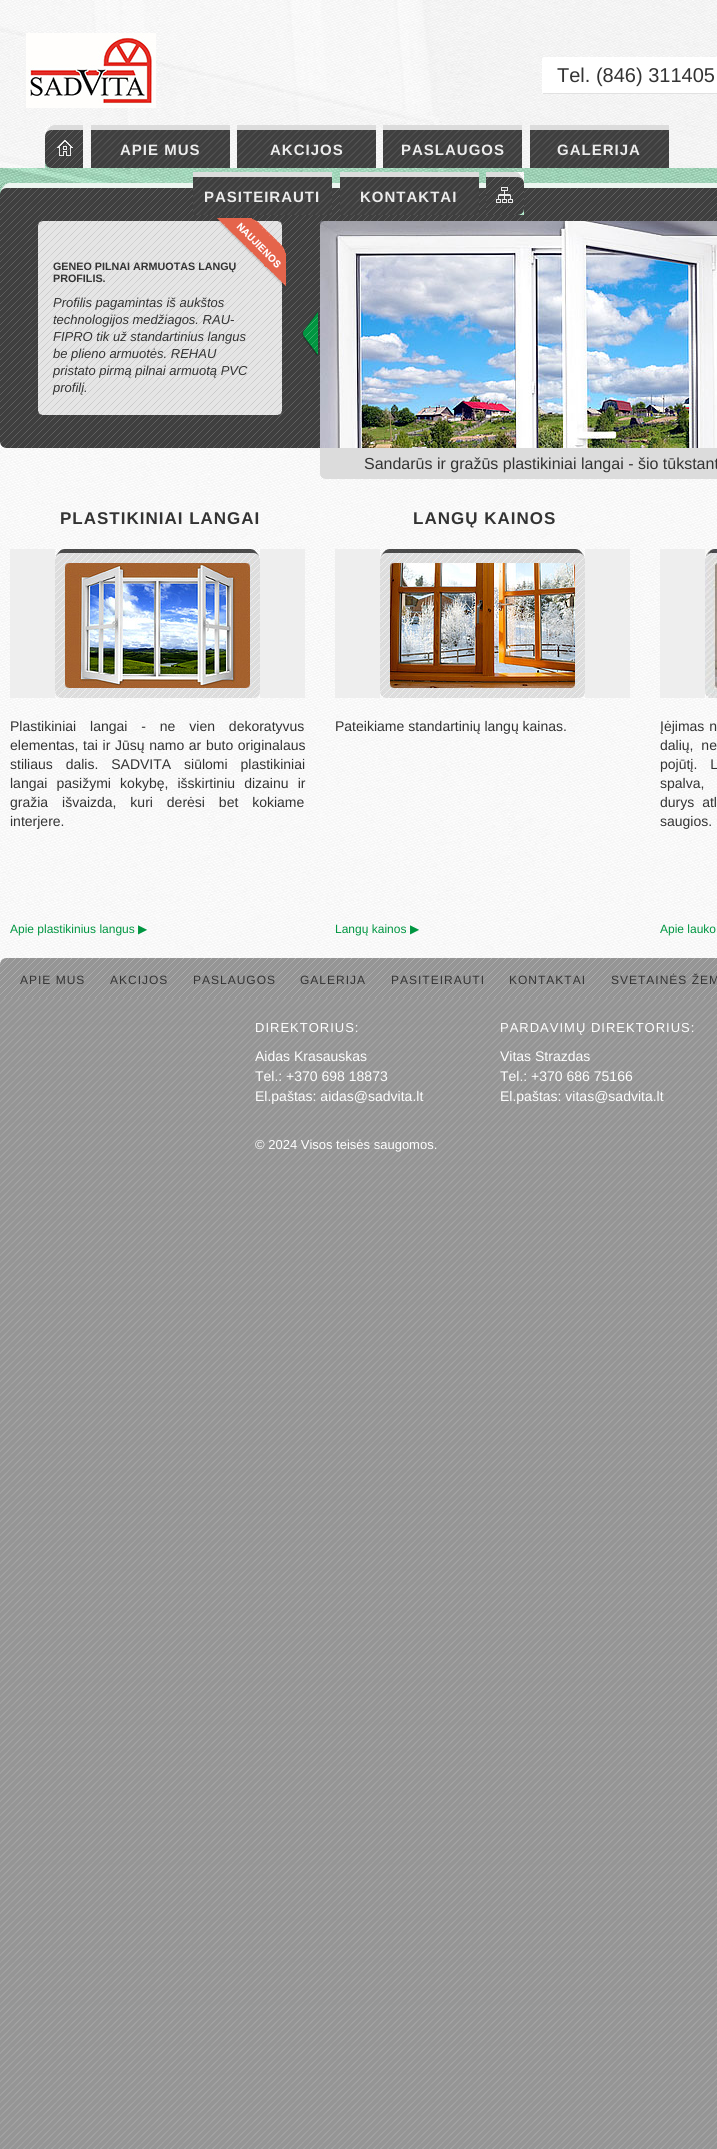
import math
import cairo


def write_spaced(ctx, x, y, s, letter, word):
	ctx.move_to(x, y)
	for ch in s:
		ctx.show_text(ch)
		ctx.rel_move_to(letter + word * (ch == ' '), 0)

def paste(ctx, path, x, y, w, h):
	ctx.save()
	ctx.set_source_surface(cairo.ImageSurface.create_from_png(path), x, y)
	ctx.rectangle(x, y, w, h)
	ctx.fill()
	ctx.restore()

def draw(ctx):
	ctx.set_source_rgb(1, 1, 1)
	ctx.paint()
	paste(ctx, 'media/1.png', 0, 998, 717, 1151)
	paste(ctx, 'media/2.png', 0, 448, 717, 510)
	paste(ctx, 'media/3.png', 0, 0, 717, 183)
	paste(ctx, 'media/4.png', 26, 33, 130, 75)
	ctx.set_source_rgb(1, 1, 1)
	ctx.new_path()
	ctx.move_to(544, 57)
	ctx.line_to(717, 57)
	ctx.line_to(717, 94)
	ctx.line_to(544, 94)
	ctx.curve_to(543, 94, 542, 93, 542, 92)
	ctx.line_to(542, 59)
	ctx.curve_to(542, 58, 543, 57, 544, 57)
	ctx.close_path()
	ctx.fill()
	ctx.set_source_rgb(0.882, 0.882, 0.882)
	ctx.rectangle(543, 93, 174, 1)
	ctx.fill()
	ctx.select_font_face('Liberation Sans')
	ctx.set_font_size(20)
	ctx.set_source_rgb(0.2, 0.2, 0.2)
	ctx.move_to(557, 82)
	ctx.show_text('Tel. (846) 311405')
	paste(ctx, 'media/5.png', 0, 125, 717, 43)
	paste(ctx, 'media/6.png', 45, 125, 38, 43)
	paste(ctx, 'media/7.png', 91, 130, 139, 38)
	ctx.set_source_rgb(0.863, 0.863, 0.863)
	ctx.rectangle(91, 125, 139, 5)
	ctx.fill()
	ctx.select_font_face('Liberation Sans', cairo.FONT_SLANT_NORMAL, cairo.FONT_WEIGHT_BOLD)
	ctx.set_font_size(15)
	ctx.set_source_rgb(0.922, 0.922, 0.922)
	write_spaced(ctx, 120, 155, 'APIE MUS', 1, 0)
	paste(ctx, 'media/8.png', 237, 130, 139, 38)
	ctx.set_source_rgb(0.863, 0.863, 0.863)
	ctx.rectangle(237, 125, 139, 5)
	ctx.fill()
	ctx.set_source_rgb(0.922, 0.922, 0.922)
	write_spaced(ctx, 270, 155, 'AKCIJOS', 1, 0)
	paste(ctx, 'media/9.png', 383, 130, 139, 38)
	ctx.set_source_rgb(0.863, 0.863, 0.863)
	ctx.rectangle(383, 125, 139, 5)
	ctx.fill()
	ctx.set_source_rgb(0.922, 0.922, 0.922)
	write_spaced(ctx, 401, 155, 'PASLAUGOS', 1, 0)
	paste(ctx, 'media/10.png', 530, 130, 139, 38)
	ctx.set_source_rgb(0.863, 0.863, 0.863)
	ctx.rectangle(530, 125, 139, 5)
	ctx.fill()
	ctx.set_source_rgb(0.922, 0.922, 0.922)
	write_spaced(ctx, 557, 155, 'GALERIJA', 1, 0)
	paste(ctx, 'media/13.png', 0, 183, 717, 265)
	paste(ctx, 'media/11.png', 193, 177, 139, 38)
	ctx.set_source_rgb(0.863, 0.863, 0.863)
	ctx.rectangle(193, 172, 139, 5)
	ctx.fill()
	ctx.set_source_rgb(0.922, 0.922, 0.922)
	write_spaced(ctx, 204, 202, 'PASITEIRAUTI', 1, 0)
	paste(ctx, 'media/7.png', 340, 177, 139, 38)
	ctx.set_source_rgb(0.863, 0.863, 0.863)
	ctx.rectangle(340, 172, 139, 5)
	ctx.fill()
	ctx.set_source_rgb(0.922, 0.922, 0.922)
	write_spaced(ctx, 360, 202, 'KONTAKTAI', 1, 0)
	paste(ctx, 'media/12.png', 486, 172, 38, 43)
	paste(ctx, 'media/14.png', 38, 218, 248, 197)
	ctx.set_font_size(10.75)
	ctx.set_source_rgb(0.2, 0.2, 0.2)
	ctx.move_to(53, 270)
	ctx.show_text('GENEO PILNAI ARMUOTAS LANGŲ')
	ctx.move_to(53, 282)
	ctx.show_text('PROFILIS.')
	ctx.select_font_face('Liberation Sans', cairo.FONT_SLANT_ITALIC)
	ctx.set_font_size(13)
	for x, y, s in [
		(53, 307, 'Profilis pagamintas iš aukštos'),
		(53, 324, 'technologijos medžiagos. RAU-'),
		(53, 341, 'FIPRO tik už standartinius langus'),
		(53, 358, 'be plieno armuotės. REHAU'),
		(53, 375, 'pristato pirmą pilnai armuotą PVC'),
		(53, 392, 'profilį.'),
	]:
		ctx.move_to(x, y)
		ctx.show_text(s)
	paste(ctx, 'media/15.png', 302, 312, 17, 44)
	paste(ctx, 'media/16.png', 320, 221, 397, 227)
	ctx.set_source_rgb(0.863, 0.863, 0.863)
	ctx.rectangle(320, 448, 397, 31)
	ctx.fill()
	paste(ctx, 'media/17.png', 320, 474, 5, 5)
	ctx.select_font_face('Liberation Sans')
	ctx.set_font_size(16)
	ctx.set_source_rgb(0.2, 0.2, 0.2)
	ctx.move_to(364, 469)
	ctx.show_text('Sandarūs ir gražūs plastikiniai langai - šio tūkstant')
	ctx.select_font_face('Liberation Sans', cairo.FONT_SLANT_NORMAL, cairo.FONT_WEIGHT_BOLD)
	ctx.set_font_size(17)
	write_spaced(ctx, 60, 524, 'PLASTIKINIAI LANGAI', 1, 0)
	ctx.set_source_rgb(0.933, 0.933, 0.933)
	ctx.rectangle(10, 549, 295, 149)
	ctx.fill()
	paste(ctx, 'media/18.png', 55, 549, 205, 149)
	ctx.select_font_face('Liberation Sans')
	ctx.set_font_size(14)
	ctx.set_source_rgb(0.2, 0.2, 0.2)
	write_spaced(ctx, 10, 731, 'Plastikiniai langai - ne vien dekoratyvus', 0, 10)
	write_spaced(ctx, 10, 750, 'elementas, tai ir Jūsų namo ar buto originalaus', 0, 0.75)
	write_spaced(ctx, 10, 769, 'stiliaus dalis. SADVITA siūlomi plastikiniai', 0, 9)
	write_spaced(ctx, 10, 788, 'langai pasižymi kokybę, išskirtiniu dizainu ir', 0, 5.25)
	write_spaced(ctx, 10, 807, 'gražia išvaizda, kuri derėsi bet kokiame', 0, 10)
	ctx.move_to(10, 826)
	ctx.show_text('interjere.')
	ctx.set_font_size(12)
	ctx.set_source_rgb(0, 0.588, 0.255)
	ctx.move_to(10, 933)
	ctx.show_text('Apie plastikinius langus')
	ctx.select_font_face('DejaVu Sans')
	ctx.move_to(138, 933)
	ctx.show_text('▶')
	ctx.select_font_face('Liberation Sans', cairo.FONT_SLANT_NORMAL, cairo.FONT_WEIGHT_BOLD)
	ctx.set_font_size(17)
	ctx.set_source_rgb(0.2, 0.2, 0.2)
	write_spaced(ctx, 413, 524, 'LANGŲ KAINOS', 1, 0)
	ctx.set_source_rgb(0.933, 0.933, 0.933)
	ctx.rectangle(335, 549, 295, 149)
	ctx.fill()
	paste(ctx, 'media/19.png', 380, 549, 205, 149)
	ctx.select_font_face('Liberation Sans')
	ctx.set_font_size(14)
	ctx.set_source_rgb(0.2, 0.2, 0.2)
	ctx.move_to(335, 731)
	ctx.show_text('Pateikiame standartinių langų kainas.')
	ctx.set_font_size(12)
	ctx.set_source_rgb(0, 0.588, 0.255)
	ctx.move_to(335, 933)
	ctx.show_text('Langų kainos')
	ctx.select_font_face('DejaVu Sans')
	ctx.move_to(410, 933)
	ctx.show_text('▶')
	ctx.set_source_rgb(0.933, 0.933, 0.933)
	ctx.rectangle(660, 549, 45, 149)
	ctx.fill()
	paste(ctx, 'media/20.png', 705, 549, 12, 149)
	ctx.select_font_face('Liberation Sans')
	ctx.set_font_size(14)
	ctx.set_source_rgb(0.2, 0.2, 0.2)
	write_spaced(ctx, 660, 731, 'Įėjimas n', 0, 1)
	write_spaced(ctx, 660, 750, 'dalių, ne', 0, 4)
	write_spaced(ctx, 660, 769, 'pojūtį. L', 0, 9)
	write_spaced(ctx, 660, 788, 'spalva,', 0, 6)
	write_spaced(ctx, 660, 807, 'durys atl', 0, 4)
	ctx.move_to(660, 826)
	ctx.show_text('saugios.')
	ctx.set_font_size(12)
	ctx.set_source_rgb(0, 0.588, 0.255)
	ctx.move_to(660, 933)
	ctx.show_text('Apie lauko')
	paste(ctx, 'media/21.png', 0, 958, 717, 40)
	ctx.set_source_rgb(0.2, 0.2, 0.2)
	for x, y, s in [
		(20, 984, 'APIE MUS'),
		(110, 984, 'AKCIJOS'),
		(193, 984, 'PASLAUGOS'),
		(300, 984, 'GALERIJA'),
		(391, 984, 'PASITEIRAUTI'),
		(509, 984, 'KONTAKTAI'),
		(611, 984, 'SVETAINĖS ŽEM'),
	]:
		write_spaced(ctx, x, y, s, 1, 0)
	ctx.set_font_size(13)
	ctx.set_source_rgb(1, 1, 1)
	write_spaced(ctx, 255, 1032, 'DIREKTORIUS:', 1, 0)
	ctx.set_font_size(14)
	for x, y, s in [
		(255, 1061, 'Aidas Krasauskas'),
		(255, 1081, 'Tel.: +370 698 18873'),
		(255, 1101, 'El.paštas: aidas@sadvita.lt'),
	]:
		ctx.move_to(x, y)
		ctx.show_text(s)
	ctx.set_font_size(13)
	write_spaced(ctx, 500, 1032, 'PARDAVIMŲ DIREKTORIUS:', 1, 0)
	ctx.set_font_size(14)
	for x, y, s in [
		(500, 1061, 'Vitas Strazdas'),
		(500, 1081, 'Tel.: +370 686 75166'),
		(500, 1101, 'El.paštas: vitas@sadvita.lt'),
	]:
		ctx.move_to(x, y)
		ctx.show_text(s)
	ctx.set_font_size(13)
	ctx.move_to(255, 1149)
	ctx.show_text('© 2024 Visos teisės saugomos.')


surface = cairo.ImageSurface(cairo.FORMAT_RGB24, 717, 2149)
ctx = cairo.Context(surface)
options = cairo.FontOptions()
options.set_hint_metrics(cairo.HINT_METRICS_OFF)
options.set_hint_style(cairo.HINT_STYLE_NONE)
ctx.set_font_options(options)
ctx.set_miter_limit(4)
draw(ctx)
surface.write_to_png('image.png')
